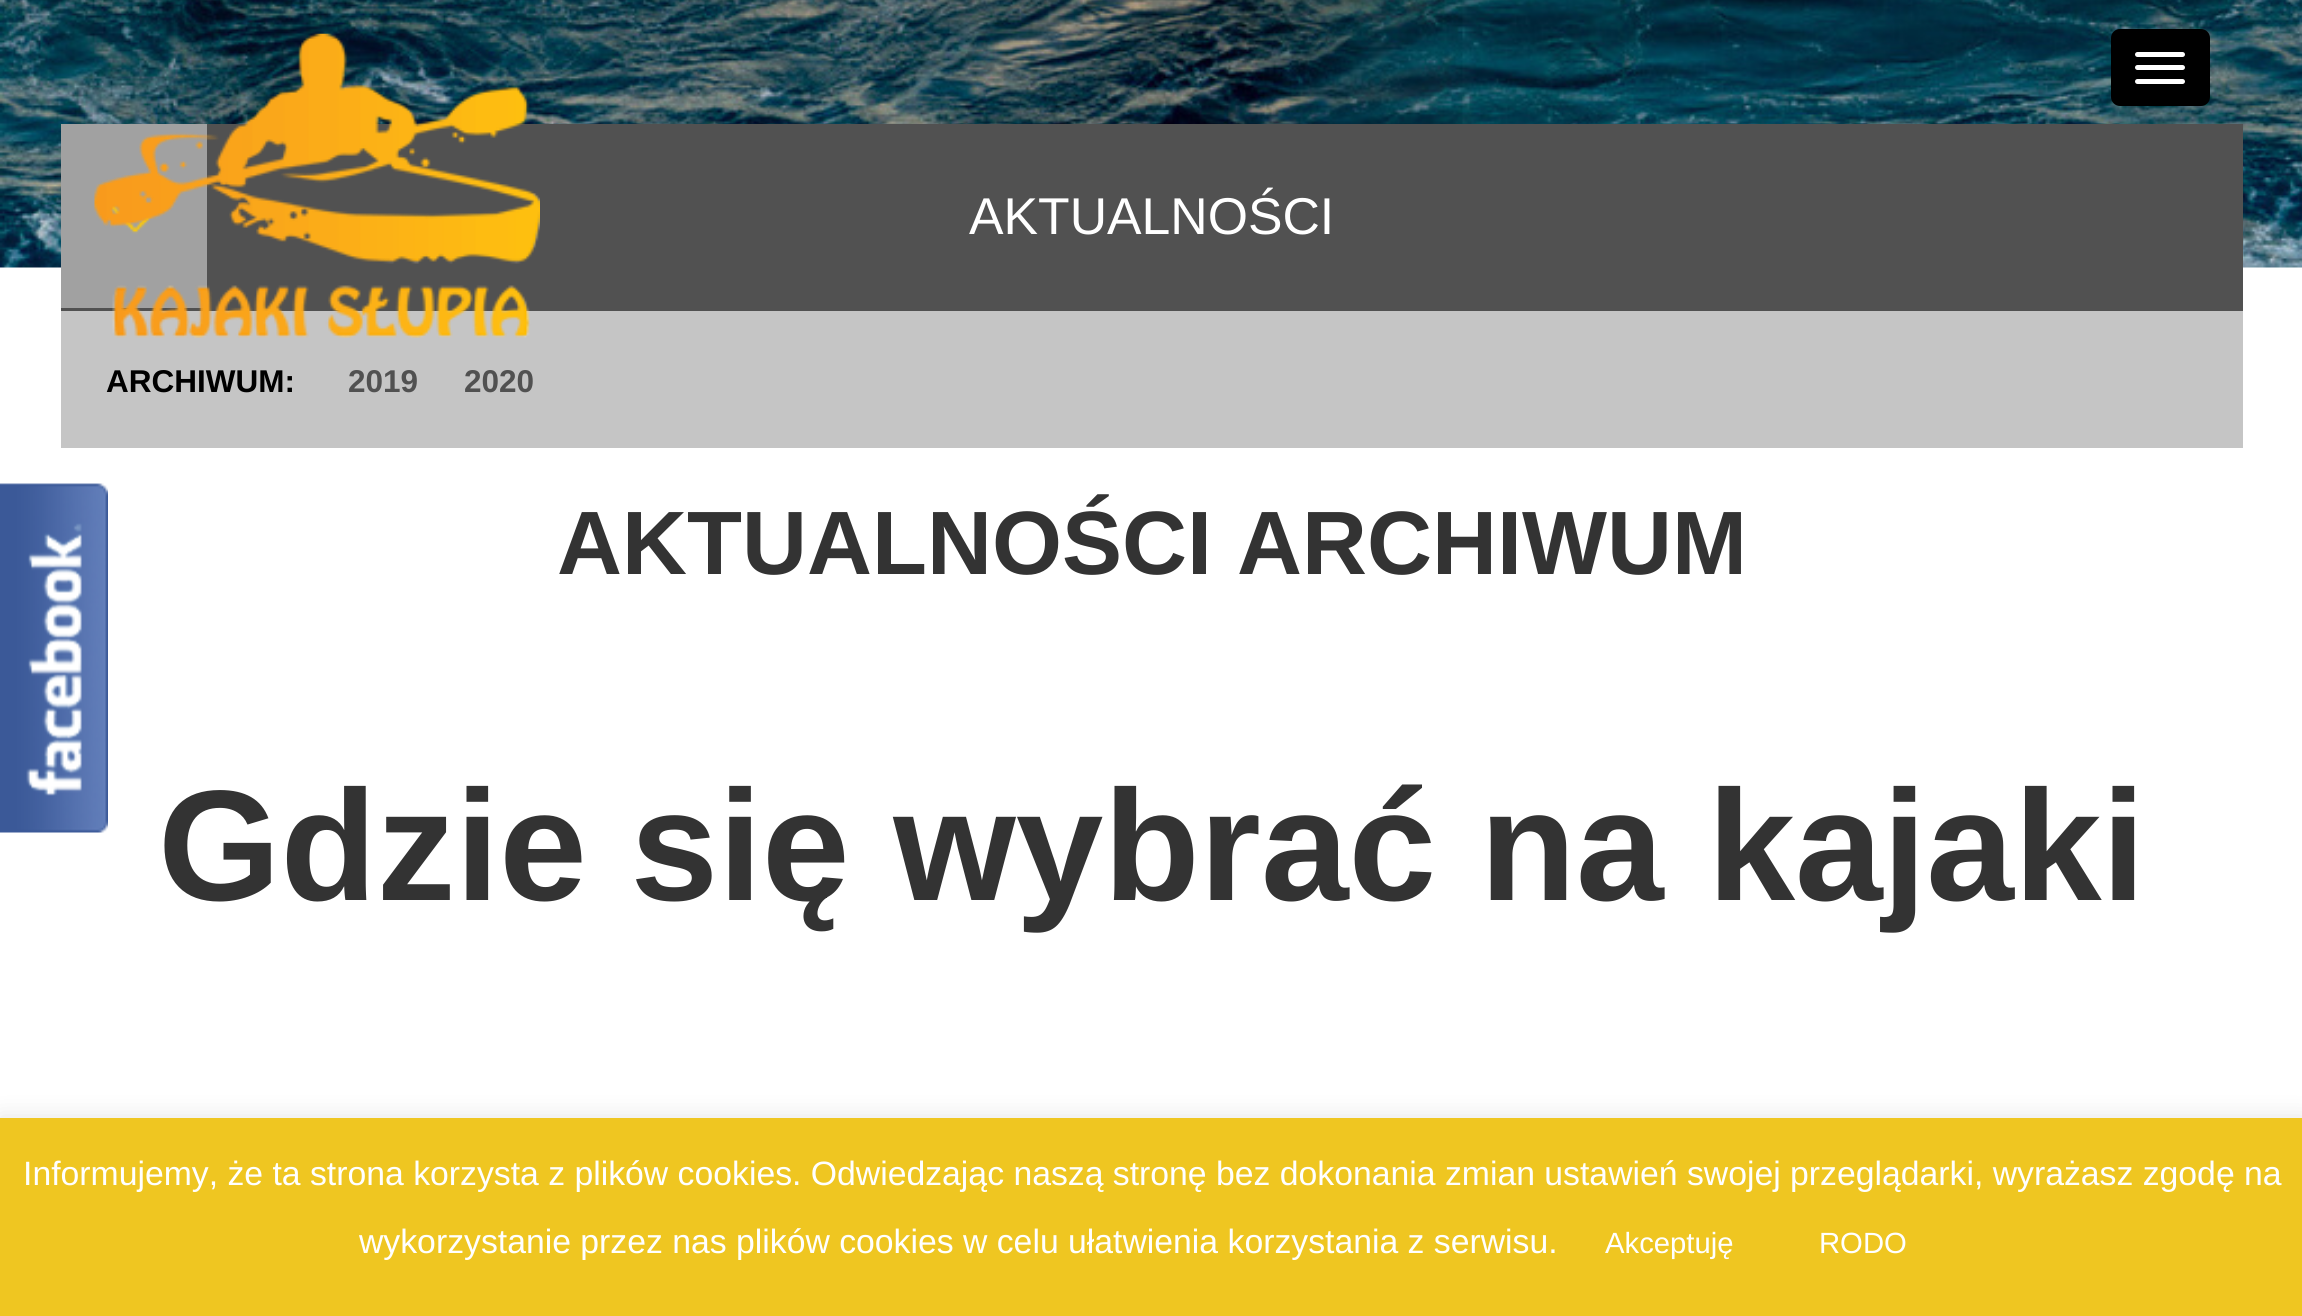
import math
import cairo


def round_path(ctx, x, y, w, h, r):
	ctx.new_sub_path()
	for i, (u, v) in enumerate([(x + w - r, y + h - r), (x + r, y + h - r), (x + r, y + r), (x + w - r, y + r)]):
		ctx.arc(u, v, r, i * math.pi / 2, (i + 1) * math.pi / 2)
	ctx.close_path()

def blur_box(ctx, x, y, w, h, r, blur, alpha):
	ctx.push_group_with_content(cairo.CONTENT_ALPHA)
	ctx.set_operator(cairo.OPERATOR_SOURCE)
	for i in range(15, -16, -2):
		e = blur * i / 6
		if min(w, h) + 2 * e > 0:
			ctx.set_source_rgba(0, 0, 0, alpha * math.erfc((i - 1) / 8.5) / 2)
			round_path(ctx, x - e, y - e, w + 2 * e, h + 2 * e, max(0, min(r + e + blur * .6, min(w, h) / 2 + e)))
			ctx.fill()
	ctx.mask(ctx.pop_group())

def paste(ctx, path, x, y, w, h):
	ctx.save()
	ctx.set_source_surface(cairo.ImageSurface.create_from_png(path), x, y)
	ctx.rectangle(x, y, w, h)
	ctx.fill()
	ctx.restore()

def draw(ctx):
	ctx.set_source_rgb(1, 1, 1)
	ctx.paint()
	paste(ctx, 'media/1.png', 0, 0, 2302, 268)
	ctx.set_source_rgb(0.318, 0.318, 0.318)
	ctx.rectangle(61, 124, 2182, 187)
	ctx.fill()
	ctx.set_source_rgb(0.631, 0.631, 0.631)
	ctx.rectangle(61, 124, 146, 184)
	ctx.fill()
	paste(ctx, 'media/3.png', 109, 204, 47, 30)
	ctx.set_source_rgb(0.773, 0.773, 0.773)
	ctx.rectangle(61, 311, 2182, 137)
	ctx.fill()
	paste(ctx, 'media/2.png', 94, 33, 446, 305)
	ctx.set_source_rgb(0, 0, 0)
	round_path(ctx, 2111, 29, 99, 77, 9)
	ctx.fill()
	ctx.set_source_rgb(1, 1, 1)
	round_path(ctx, 2135, 52, 50, 5, 2.5)
	ctx.fill()
	round_path(ctx, 2135, 65, 50, 5, 2.5)
	ctx.fill()
	round_path(ctx, 2135, 79, 50, 5, 2.5)
	ctx.fill()
	ctx.select_font_face('Liberation Sans')
	ctx.set_font_size(51.75)
	ctx.move_to(969, 234)
	ctx.show_text('AKTUALNOŚCI')
	ctx.select_font_face('Liberation Sans', cairo.FONT_SLANT_NORMAL, cairo.FONT_WEIGHT_BOLD)
	ctx.set_font_size(31.5)
	ctx.set_source_rgb(0, 0, 0)
	ctx.move_to(106, 392)
	ctx.show_text('ARCHIWUM:')
	ctx.set_source_rgb(0.318, 0.318, 0.318)
	ctx.move_to(348, 392)
	ctx.show_text('2019')
	ctx.move_to(464, 392)
	ctx.show_text('2020')
	paste(ctx, 'media/4.png', 0, 483, 108, 350)
	ctx.set_font_size(90)
	ctx.set_source_rgb(0.2, 0.2, 0.2)
	ctx.move_to(557, 574)
	ctx.show_text('AKTUALNOŚCI ARCHIWUM')
	ctx.set_font_size(157.5)
	ctx.move_to(158, 900)
	ctx.show_text('Gdzie się wybrać na kajaki')
	ctx.set_source_rgb(0.675, 0.671, 0.671)
	blur_box(ctx, 0, 1116, 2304, 198, 0, 11, 0.3)
	ctx.set_source_rgb(0.937, 0.776, 0.129)
	ctx.rectangle(0, 1118, 2302, 198)
	ctx.fill()
	ctx.select_font_face('Liberation Sans')
	ctx.set_font_size(33.75)
	ctx.set_source_rgb(1, 1, 1)
	ctx.move_to(23, 1185)
	ctx.show_text('Informujemy, że ta strona korzysta z plików cookies. Odwiedzając naszą stronę bez dokonania zmian ustawień swojej przeglądarki, wyrażasz zgodę na')
	ctx.move_to(359, 1253)
	ctx.show_text('wykorzystanie przez nas plików cookies w celu ułatwienia korzystania z serwisu.')
	ctx.set_font_size(29.25)
	ctx.move_to(1605, 1253)
	ctx.show_text('Akceptuję')
	ctx.move_to(1819, 1253)
	ctx.show_text('RODO')


surface = cairo.ImageSurface(cairo.FORMAT_RGB24, 2302, 1316)
ctx = cairo.Context(surface)
options = cairo.FontOptions()
options.set_hint_metrics(cairo.HINT_METRICS_OFF)
options.set_hint_style(cairo.HINT_STYLE_NONE)
ctx.set_font_options(options)
ctx.set_miter_limit(4)
draw(ctx)
surface.write_to_png('image.png')
